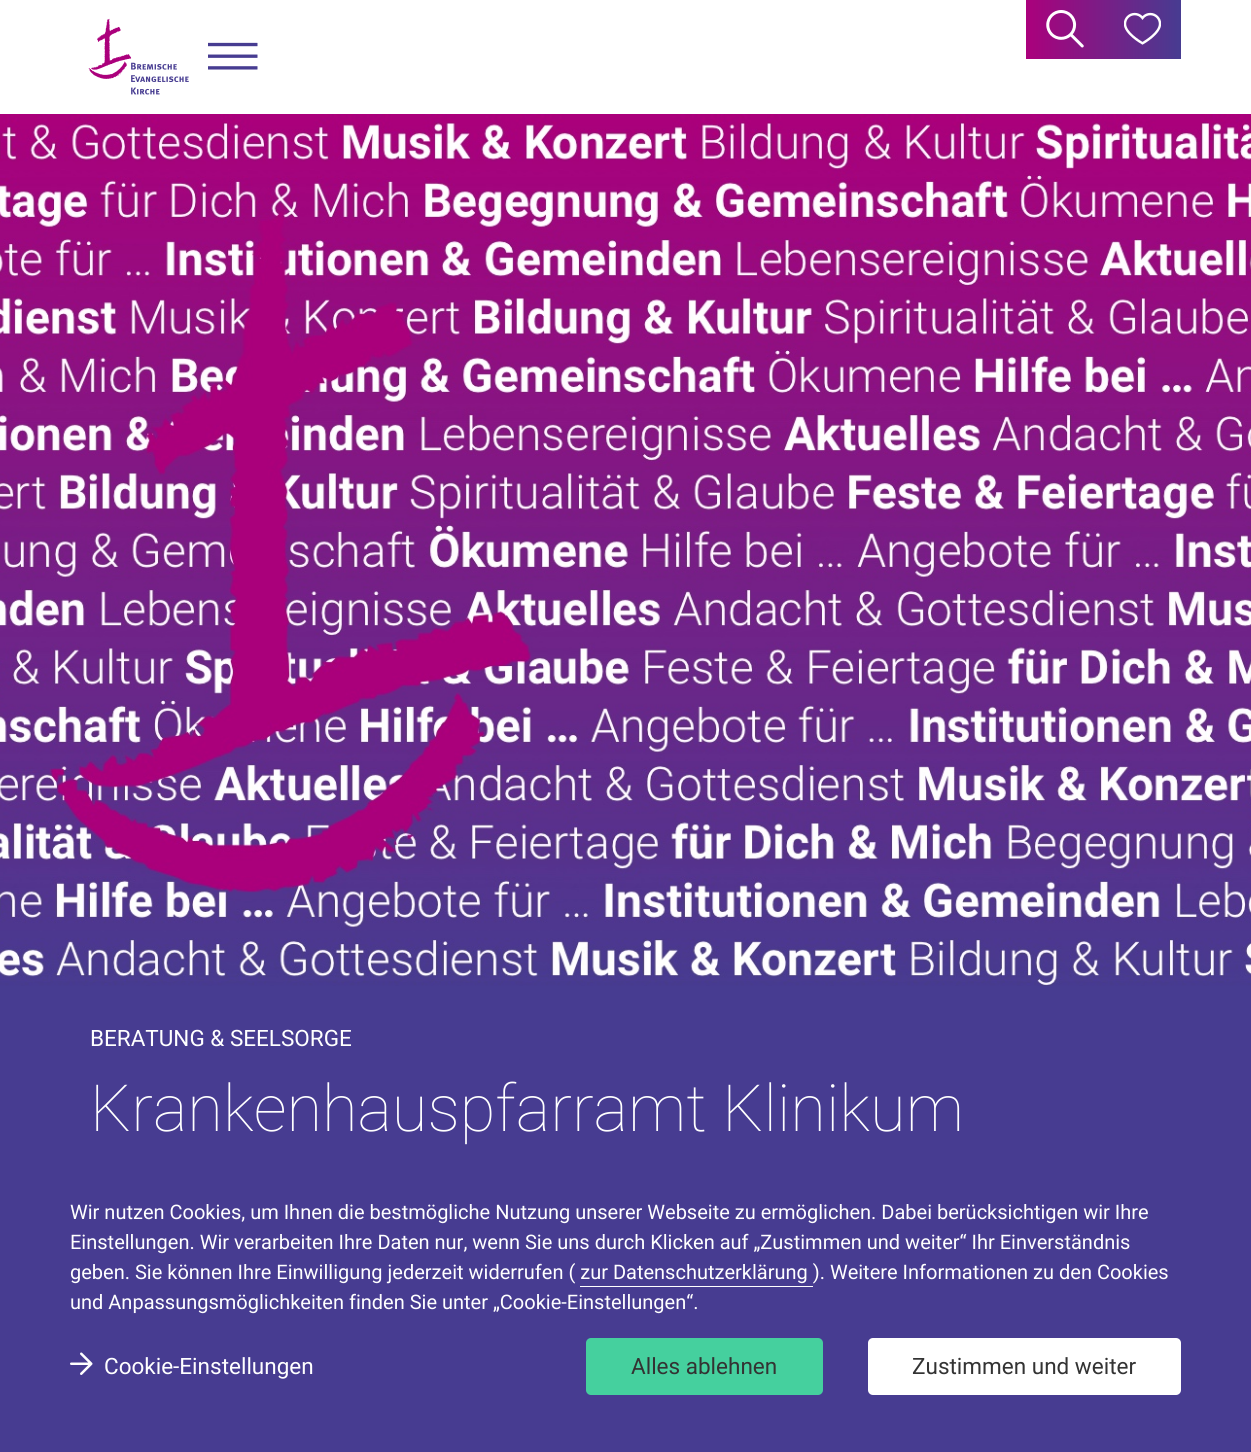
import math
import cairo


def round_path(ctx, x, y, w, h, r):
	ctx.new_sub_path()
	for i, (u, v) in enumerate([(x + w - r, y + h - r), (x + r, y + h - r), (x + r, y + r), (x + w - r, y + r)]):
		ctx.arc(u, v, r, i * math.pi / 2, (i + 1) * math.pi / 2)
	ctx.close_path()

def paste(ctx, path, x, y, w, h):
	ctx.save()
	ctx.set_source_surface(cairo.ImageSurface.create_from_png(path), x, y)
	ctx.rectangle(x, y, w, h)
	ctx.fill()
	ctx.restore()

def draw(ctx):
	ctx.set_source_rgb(0.278, 0.235, 0.569)
	ctx.paint()
	ctx.set_source_rgb(1, 1, 1)
	ctx.rectangle(0, 0, 1251, 114)
	ctx.fill()
	paste(ctx, 'media/1.png', 88, 18, 101, 77)
	paste(ctx, 'media/2.png', 208, 42, 50, 28)
	gradient = cairo.LinearGradient(1026, 29, 1181, 29)
	gradient.add_color_stop_rgba(0, 0.278, 0.235, 0.569, 1)
	gradient.add_color_stop_rgba(0, 0.671, 0, 0.486, 1)
	gradient.add_color_stop_rgba(1, 0.278, 0.235, 0.569, 1)
	ctx.set_source(gradient)
	ctx.rectangle(1026, 0, 155, 59)
	ctx.fill()
	paste(ctx, 'media/3.png', 1046, 10, 38, 38)
	paste(ctx, 'media/4.png', 1124, 12, 37, 33)
	paste(ctx, 'media/5.png', 0, 114, 1251, 872)
	ctx.select_font_face('Roboto')
	ctx.set_font_size(22.5)
	ctx.set_source_rgb(1, 1, 1)
	ctx.move_to(90, 1046)
	ctx.show_text('BERATUNG & SEELSORGE')
	ctx.select_font_face('Roboto Thin')
	ctx.set_font_size(65)
	ctx.move_to(90, 1131)
	ctx.show_text('Krankenhauspfarramt Klinikum')
	ctx.select_font_face('Roboto')
	ctx.set_font_size(20)
	for x, y, s in [
		(70, 1219, 'Wir nutzen Cookies, um Ihnen die bestmögliche Nutzung unserer Webseite zu ermöglichen. Dabei berücksichtigen wir Ihre'),
		(70, 1249, 'Einstellungen. Wir verarbeiten Ihre Daten nur, wenn Sie uns durch Klicken auf „Zustimmen und weiter“ Ihr Einverständnis'),
		(70, 1279, 'geben. Sie können Ihre Einwilligung jederzeit widerrufen ( zur Datenschutzerklärung ). Weitere Informationen zu den Cookies'),
	]:
		ctx.move_to(x, y)
		ctx.show_text(s)
	ctx.rectangle(580, 1286, 233, 1)
	ctx.fill()
	ctx.move_to(70, 1309)
	ctx.show_text('und Anpassungsmöglichkeiten finden Sie unter „Cookie-Einstellungen“.')
	paste(ctx, 'media/6.png', 70, 1352, 23, 23)
	ctx.set_font_size(22.5)
	ctx.move_to(104, 1374)
	ctx.show_text('Cookie-Einstellungen')
	ctx.set_source_rgb(0.271, 0.816, 0.62)
	round_path(ctx, 586, 1338, 237, 57, 5)
	ctx.fill()
	ctx.set_source_rgb(0.2, 0.2, 0.2)
	ctx.move_to(631, 1374)
	ctx.show_text('Alles ablehnen')
	ctx.set_source_rgb(1, 1, 1)
	round_path(ctx, 868, 1338, 313, 57, 5)
	ctx.fill()
	ctx.set_source_rgb(0.2, 0.2, 0.2)
	ctx.move_to(912, 1374)
	ctx.show_text('Zustimmen und weiter')


surface = cairo.ImageSurface(cairo.FORMAT_RGB24, 1251, 1452)
ctx = cairo.Context(surface)
options = cairo.FontOptions()
options.set_hint_metrics(cairo.HINT_METRICS_OFF)
options.set_hint_style(cairo.HINT_STYLE_NONE)
ctx.set_font_options(options)
ctx.set_miter_limit(4)
draw(ctx)
surface.write_to_png('image.png')
